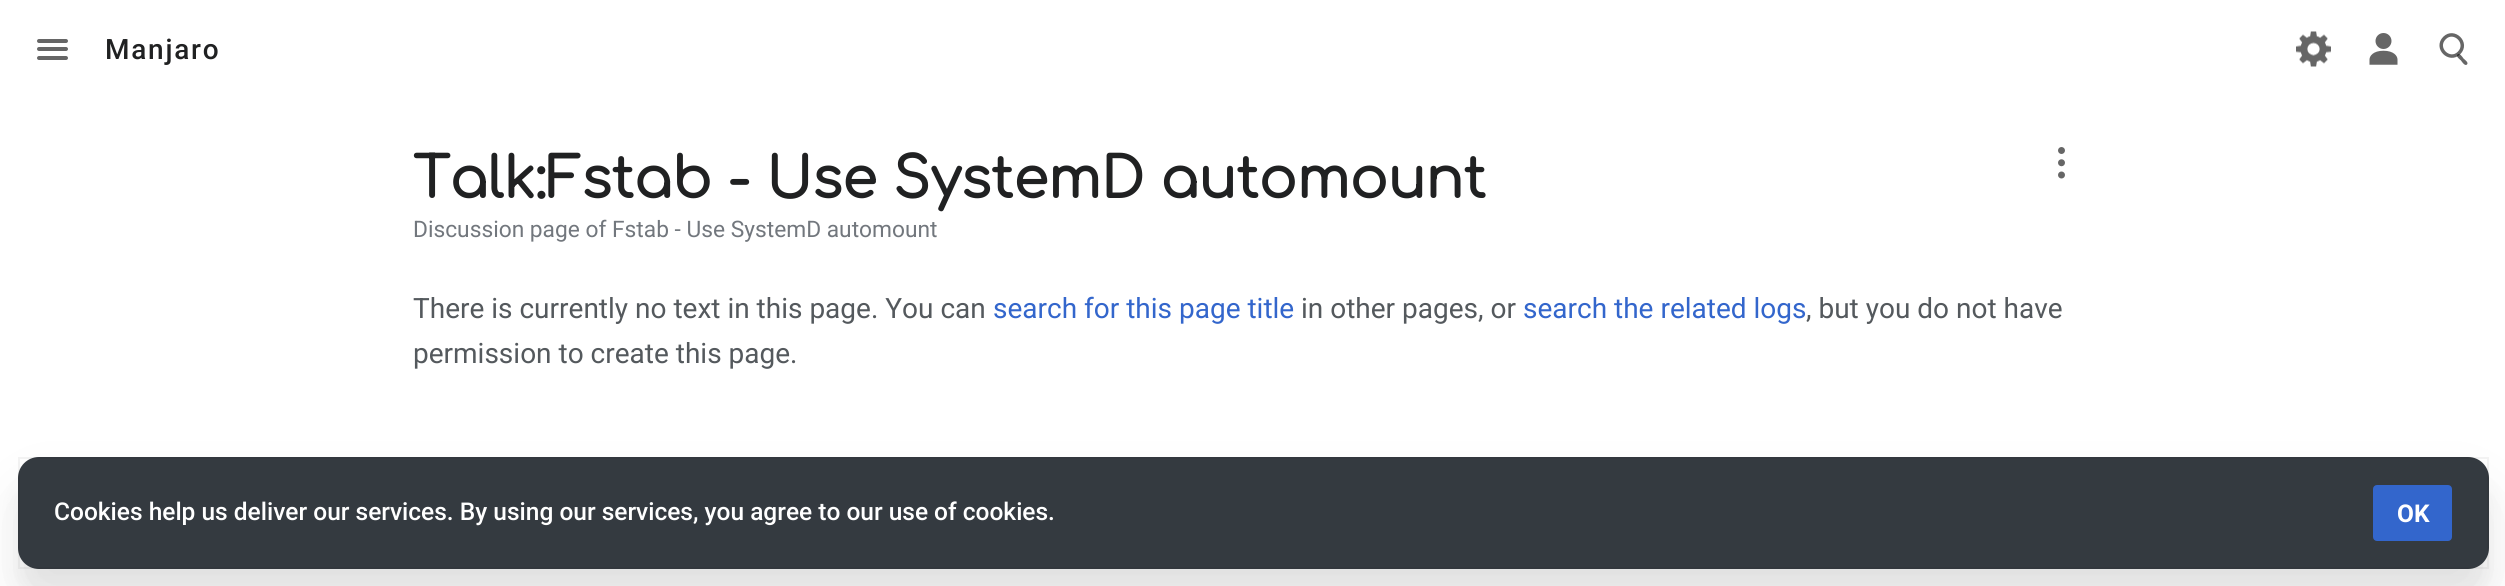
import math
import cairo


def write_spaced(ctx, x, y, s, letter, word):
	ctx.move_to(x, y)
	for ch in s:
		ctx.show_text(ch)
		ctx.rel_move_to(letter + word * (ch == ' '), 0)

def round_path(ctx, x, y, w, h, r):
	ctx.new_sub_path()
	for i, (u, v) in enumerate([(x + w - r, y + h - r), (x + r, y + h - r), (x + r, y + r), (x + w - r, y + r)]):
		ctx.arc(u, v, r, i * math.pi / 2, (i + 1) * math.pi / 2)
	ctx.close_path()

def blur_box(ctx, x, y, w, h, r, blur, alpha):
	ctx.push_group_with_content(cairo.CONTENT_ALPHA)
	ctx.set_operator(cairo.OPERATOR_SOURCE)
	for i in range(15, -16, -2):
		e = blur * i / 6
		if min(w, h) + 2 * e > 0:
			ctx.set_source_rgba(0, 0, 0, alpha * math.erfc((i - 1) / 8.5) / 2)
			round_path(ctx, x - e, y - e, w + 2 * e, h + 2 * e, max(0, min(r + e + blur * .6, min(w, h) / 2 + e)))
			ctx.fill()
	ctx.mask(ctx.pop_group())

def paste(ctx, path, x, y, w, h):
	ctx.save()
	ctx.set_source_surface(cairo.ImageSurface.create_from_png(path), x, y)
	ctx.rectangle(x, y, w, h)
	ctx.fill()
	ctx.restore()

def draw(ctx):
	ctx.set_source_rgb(1, 1, 1)
	ctx.paint()
	ctx.set_source_rgb(0.4, 0.4, 0.4)
	round_path(ctx, 37, 39, 31, 4, 2)
	ctx.fill()
	round_path(ctx, 37, 47, 31, 4, 2)
	ctx.fill()
	round_path(ctx, 37, 56, 31, 4, 2)
	ctx.fill()
	ctx.select_font_face('Roboto Medium')
	ctx.set_font_size(28)
	ctx.set_source_rgb(0.125, 0.129, 0.133)
	write_spaced(ctx, 105, 59, 'Manjaro', 1.75, 0)
	paste(ctx, 'media/1.png', 2296, 31, 35, 36)
	paste(ctx, 'media/2.png', 2369, 33, 29, 32)
	ctx.set_source_rgb(0.4, 0.4, 0.4)
	ctx.new_path()
	ctx.move_to(2457.5, 54.5)
	ctx.curve_to(2459.5, 52.5, 2462.5, 57, 2463.5, 58.5)
	ctx.curve_to(2464.5, 59.5, 2469, 62.5, 2467, 64.5)
	ctx.curve_to(2465, 66.5, 2462, 62, 2461, 60.5)
	ctx.curve_to(2460, 59.5, 2455.5, 56.5, 2457.5, 54.5)
	ctx.close_path()
	ctx.fill()
	ctx.new_path()
	ctx.move_to(2444.5, 38)
	ctx.curve_to(2454, 28.5, 2469, 43, 2459, 53)
	ctx.curve_to(2449.5, 62.5, 2434.5, 48, 2444.5, 38)
	ctx.close_path()
	ctx.set_source_rgba(0, 0, 0, 0.6)
	ctx.set_line_width(3.5)
	ctx.stroke()
	ctx.select_font_face('Comfortaa', cairo.FONT_SLANT_NORMAL, cairo.FONT_WEIGHT_BOLD)
	ctx.set_font_size(56)
	ctx.set_source_rgb(0.125, 0.129, 0.133)
	ctx.move_to(413, 198)
	ctx.show_text('Talk:Fstab - Use SystemD automount')
	ctx.select_font_face('Roboto')
	ctx.set_font_size(22.75)
	ctx.set_source_rgb(0.447, 0.467, 0.49)
	ctx.move_to(413, 237)
	ctx.show_text('Discussion page of Fstab - Use SystemD automount')
	paste(ctx, 'media/3.png', 2058, 147, 7, 32)
	ctx.set_font_size(28)
	ctx.set_source_rgb(0.329, 0.349, 0.365)
	ctx.move_to(413, 318)
	ctx.show_text('There is currently no text in this page. You can')
	ctx.set_source_rgb(0.2, 0.4, 0.8)
	ctx.move_to(993, 318)
	ctx.show_text('search for this page title')
	ctx.set_source_rgb(0.329, 0.349, 0.365)
	ctx.move_to(1301, 318)
	ctx.show_text('in other pages, or')
	ctx.set_source_rgb(0.2, 0.4, 0.8)
	ctx.move_to(1523, 318)
	ctx.show_text('search the related logs')
	ctx.set_source_rgb(0.329, 0.349, 0.365)
	ctx.move_to(1806, 318)
	ctx.show_text(', but you do not have')
	ctx.move_to(413, 363)
	ctx.show_text('permission to create this page.')
	ctx.set_source_rgb(0, 0, 0)
	blur_box(ctx, 18, 483, 2471, 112, 21, 10.5, 0.06)
	blur_box(ctx, 18, 490, 2471, 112, 21, 33, 0.07)
	ctx.set_source_rgb(0.204, 0.227, 0.251)
	round_path(ctx, 18, 457, 2471, 112, 21)
	ctx.fill()
	ctx.rectangle(19, 458, 2469, 110)
	ctx.set_source_rgba(0, 0, 0, 0.05)
	ctx.set_line_width(2)
	ctx.stroke()
	ctx.select_font_face('Roboto Medium')
	ctx.set_font_size(24.5)
	ctx.set_source_rgb(1, 1, 1)
	ctx.move_to(54, 520)
	ctx.show_text('Cookies help us deliver our services. By using our services, you agree to our use of cookies.')
	ctx.set_source_rgb(0.2, 0.4, 0.8)
	round_path(ctx, 2374, 486, 77, 54, 3)
	ctx.fill_preserve()
	ctx.stroke()
	ctx.select_font_face('Roboto', cairo.FONT_SLANT_NORMAL, cairo.FONT_WEIGHT_BOLD)
	ctx.set_source_rgb(1, 1, 1)
	ctx.move_to(2397, 522)
	ctx.show_text('OK')


surface = cairo.ImageSurface(cairo.FORMAT_RGB24, 2505, 586)
ctx = cairo.Context(surface)
options = cairo.FontOptions()
options.set_hint_metrics(cairo.HINT_METRICS_OFF)
options.set_hint_style(cairo.HINT_STYLE_NONE)
ctx.set_font_options(options)
ctx.set_miter_limit(4)
draw(ctx)
surface.write_to_png('image.png')
